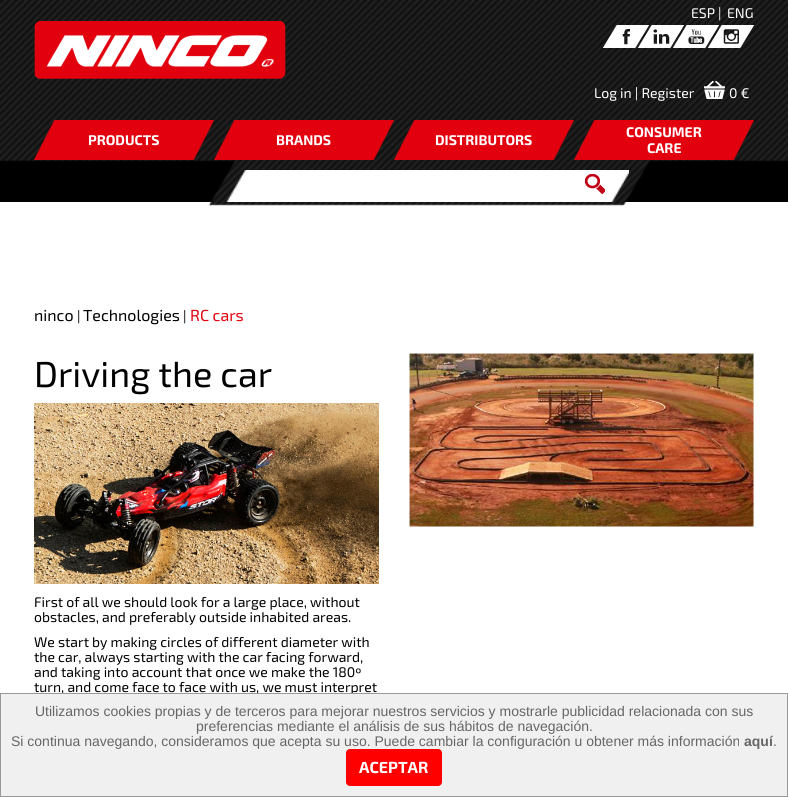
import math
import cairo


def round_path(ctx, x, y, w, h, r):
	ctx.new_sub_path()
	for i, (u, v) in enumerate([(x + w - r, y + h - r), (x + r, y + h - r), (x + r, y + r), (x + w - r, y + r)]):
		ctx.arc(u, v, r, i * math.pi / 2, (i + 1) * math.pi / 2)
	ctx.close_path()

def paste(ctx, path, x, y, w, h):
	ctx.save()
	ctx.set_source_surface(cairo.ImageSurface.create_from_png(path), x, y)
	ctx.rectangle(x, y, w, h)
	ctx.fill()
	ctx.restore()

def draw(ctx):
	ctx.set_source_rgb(0, 0, 0)
	ctx.paint()
	ctx.set_source_rgb(1, 1, 1)
	ctx.rectangle(0, 202, 788, 491)
	ctx.fill()
	paste(ctx, 'media/1.png', 0, 0, 788, 206)
	ctx.select_font_face('Exo 2')
	ctx.set_font_size(14)
	ctx.move_to(691, 18)
	ctx.show_text('ESP |')
	ctx.move_to(727, 18)
	ctx.show_text('ENG')
	paste(ctx, 'media/2.png', 34, 21, 252, 58)
	paste(ctx, 'media/6.png', 708, 25, 46, 23)
	paste(ctx, 'media/5.png', 673, 25, 46, 23)
	paste(ctx, 'media/4.png', 638, 25, 46, 23)
	paste(ctx, 'media/3.png', 603, 25, 46, 23)
	ctx.move_to(594, 98)
	ctx.show_text('Log in | Register')
	paste(ctx, 'media/7.png', 704, 81, 21, 18)
	ctx.move_to(729, 98)
	ctx.show_text('0 €')
	paste(ctx, 'media/8.png', 34, 120, 180, 40)
	ctx.select_font_face('Exo 2', cairo.FONT_SLANT_NORMAL, cairo.FONT_WEIGHT_BOLD)
	ctx.move_to(88, 145)
	ctx.show_text('PRODUCTS')
	paste(ctx, 'media/9.png', 214, 120, 180, 40)
	ctx.move_to(276, 145)
	ctx.show_text('BRANDS')
	paste(ctx, 'media/10.png', 394, 120, 180, 40)
	ctx.move_to(435, 145)
	ctx.show_text('DISTRIBUTORS')
	paste(ctx, 'media/11.png', 574, 120, 180, 40)
	ctx.move_to(626, 137)
	ctx.show_text('CONSUMER')
	ctx.move_to(647, 153)
	ctx.show_text('CARE')
	paste(ctx, 'media/12.png', 225, 170, 404, 32)
	paste(ctx, 'media/13.png', 585, 174, 20, 20)
	ctx.select_font_face('Exo 2')
	ctx.set_font_size(16)
	ctx.set_source_rgb(0, 0, 0)
	ctx.move_to(34, 321)
	ctx.show_text('ninco')
	ctx.set_font_size(14)
	ctx.move_to(77, 321)
	ctx.show_text('|')
	ctx.set_font_size(16)
	ctx.move_to(83, 321)
	ctx.show_text('Technologies')
	ctx.set_font_size(14)
	ctx.move_to(183, 321)
	ctx.show_text('|')
	ctx.set_font_size(16)
	ctx.set_source_rgb(0.89, 0, 0.059)
	ctx.move_to(190, 321)
	ctx.show_text('RC cars')
	ctx.set_font_size(36)
	ctx.set_source_rgb(0, 0, 0)
	ctx.move_to(34, 387)
	ctx.show_text('Driving the car')
	paste(ctx, 'media/14.png', 34, 403, 345, 181)
	ctx.set_font_size(14)
	for x, y, s in [
		(34, 607, 'First of all we should look for a large place, without'),
		(34, 622, 'obstacles, and preferably outside inhabited areas.'),
		(34, 647, 'We start by making circles of different diameter with'),
		(34, 662, 'the car, always starting with the car facing forward,'),
		(34, 677, 'and taking into account that once we make the 180º'),
		(34, 692, 'turn, and come face to face with us, we must interpret'),
	]:
		ctx.move_to(x, y)
		ctx.show_text(s)
	paste(ctx, 'media/15.png', 409, 353, 345, 174)
	ctx.set_source_rgb(0.941, 0.941, 0.941)
	ctx.rectangle(0.5, 693.5, 787, 103)
	ctx.fill_preserve()
	ctx.set_source_rgb(0.6, 0.6, 0.6)
	ctx.set_line_width(1)
	ctx.stroke()
	ctx.select_font_face('Liberation Sans')
	ctx.set_source_rgb(0.4, 0.4, 0.4)
	for x, y, s in [
		(35, 716, 'Utilizamos cookies propias y de terceros para mejorar nuestros servicios y mostrarle publicidad relacionada con sus'),
		(196, 731, 'preferencias mediante el análisis de sus hábitos de navegación.'),
		(11, 746, 'Si continua navegando, consideramos que acepta su uso. Puede cambiar la configuración u obtener más información'),
	]:
		ctx.move_to(x, y)
		ctx.show_text(s)
	ctx.select_font_face('Liberation Sans', cairo.FONT_SLANT_NORMAL, cairo.FONT_WEIGHT_BOLD)
	ctx.move_to(744, 746)
	ctx.show_text('aquí')
	ctx.select_font_face('Liberation Sans')
	ctx.move_to(773, 746)
	ctx.show_text('.')
	ctx.set_source_rgb(1, 0, 0)
	round_path(ctx, 346, 749, 96, 37, 4)
	ctx.fill()
	ctx.select_font_face('Exo 2', cairo.FONT_SLANT_NORMAL, cairo.FONT_WEIGHT_BOLD)
	ctx.set_font_size(16)
	ctx.set_source_rgb(1, 1, 1)
	ctx.move_to(359, 773)
	ctx.show_text('ACEPTAR')


surface = cairo.ImageSurface(cairo.FORMAT_RGB24, 788, 797)
ctx = cairo.Context(surface)
options = cairo.FontOptions()
options.set_hint_metrics(cairo.HINT_METRICS_OFF)
options.set_hint_style(cairo.HINT_STYLE_NONE)
ctx.set_font_options(options)
ctx.set_miter_limit(4)
draw(ctx)
surface.write_to_png('image.png')
